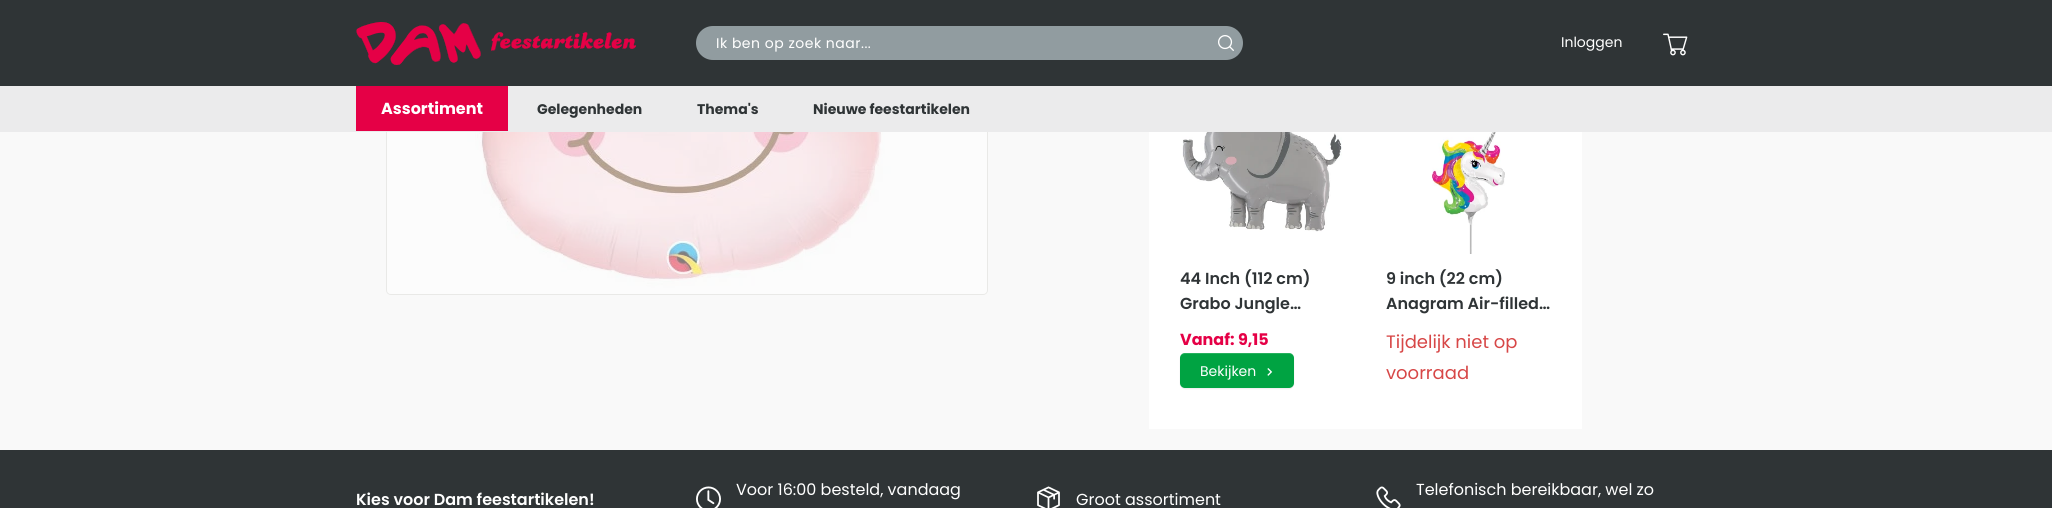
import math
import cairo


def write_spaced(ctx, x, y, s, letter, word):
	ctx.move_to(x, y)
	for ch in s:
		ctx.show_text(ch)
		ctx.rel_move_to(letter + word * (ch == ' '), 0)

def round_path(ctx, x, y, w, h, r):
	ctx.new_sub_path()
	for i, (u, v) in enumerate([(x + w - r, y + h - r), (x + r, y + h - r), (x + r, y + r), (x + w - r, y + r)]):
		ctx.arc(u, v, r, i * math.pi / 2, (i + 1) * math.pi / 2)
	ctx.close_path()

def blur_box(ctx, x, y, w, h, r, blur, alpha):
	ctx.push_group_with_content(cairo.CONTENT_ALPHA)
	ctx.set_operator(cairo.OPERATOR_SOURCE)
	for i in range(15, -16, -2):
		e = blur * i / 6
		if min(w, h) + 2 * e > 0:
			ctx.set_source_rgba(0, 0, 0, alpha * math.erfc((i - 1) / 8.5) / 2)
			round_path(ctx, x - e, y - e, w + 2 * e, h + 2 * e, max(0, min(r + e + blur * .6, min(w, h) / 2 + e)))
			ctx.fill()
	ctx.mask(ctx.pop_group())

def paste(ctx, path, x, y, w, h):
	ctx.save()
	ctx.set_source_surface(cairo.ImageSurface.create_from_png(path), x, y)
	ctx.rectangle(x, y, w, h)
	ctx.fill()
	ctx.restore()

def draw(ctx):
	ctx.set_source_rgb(0.973, 0.973, 0.973)
	ctx.paint()
	round_path(ctx, 386.5, -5.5, 601, 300, 4.5)
	ctx.set_source_rgb(0.914, 0.914, 0.906)
	ctx.set_line_width(1)
	ctx.stroke()
	ctx.set_source_rgb(0.184, 0.204, 0.212)
	ctx.rectangle(0, 0, 2052, 86)
	ctx.fill()
	paste(ctx, 'media/1.png', 356, 22, 280, 43)
	ctx.set_source_rgb(0.569, 0.612, 0.627)
	round_path(ctx, 696, 26, 547, 34, 17)
	ctx.fill()
	ctx.select_font_face('Poppins')
	ctx.set_font_size(14)
	ctx.set_source_rgb(1, 1, 1)
	write_spaced(ctx, 716, 48, 'Ik ben op zoek naar...', 0.5, 0)
	paste(ctx, 'media/2.png', 1218, 35, 16, 16)
	ctx.move_to(1561, 47)
	ctx.show_text('Inloggen')
	paste(ctx, 'media/3.png', 1663, 33, 25, 23)
	ctx.set_source_rgb(0.918, 0.918, 0.922)
	ctx.rectangle(0, 86, 2052, 46)
	ctx.fill()
	ctx.set_source_rgb(0.898, 0, 0.275)
	ctx.rectangle(356, 86, 152, 45)
	ctx.fill()
	ctx.select_font_face('Poppins', cairo.FONT_SLANT_NORMAL, cairo.FONT_WEIGHT_BOLD)
	ctx.set_font_size(16)
	ctx.set_source_rgb(1, 1, 1)
	ctx.move_to(381, 114)
	ctx.show_text('Assortiment')
	ctx.set_font_size(14)
	ctx.set_source_rgb(0.184, 0.204, 0.212)
	for x, y, s in [
		(537, 114, 'Gelegenheden'),
		(697, 114, 'Thema\'s'),
		(813, 114, 'Nieuwe feestartikelen'),
	]:
		ctx.move_to(x, y)
		ctx.show_text(s)
	paste(ctx, 'media/4.png', 387, 132, 600, 162)
	ctx.set_source_rgb(1, 1, 1)
	ctx.rectangle(1149, 132, 433, 297)
	ctx.fill()
	paste(ctx, 'media/5.png', 1182, 132, 160, 100)
	ctx.select_font_face('Poppins SemiBold')
	ctx.set_font_size(16)
	ctx.set_source_rgb(0.184, 0.204, 0.212)
	ctx.move_to(1180, 284)
	ctx.show_text('44 Inch (112 cm)')
	ctx.move_to(1180, 309)
	ctx.show_text('Grabo Jungle…')
	ctx.select_font_face('Poppins', cairo.FONT_SLANT_NORMAL, cairo.FONT_WEIGHT_BOLD)
	ctx.set_source_rgb(0.898, 0, 0.275)
	ctx.move_to(1180, 345)
	ctx.show_text('Vanaf: 9,15')
	ctx.set_source_rgb(0, 0, 0)
	blur_box(ctx, 1180, 354, 114, 35, 5, 0.5, 0.07)
	ctx.set_source_rgb(0, 0.639, 0.259)
	round_path(ctx, 1180, 353, 114, 35, 5)
	ctx.fill()
	ctx.set_source_rgba(1, 1, 1, 0.15)
	ctx.new_path()
	ctx.move_to(1185, 354)
	ctx.line_to(1289, 354)
	ctx.curve_to(1292, 354, 1294, 356, 1294, 359)
	ctx.curve_to(1294, 349, 1276, 353, 1272, 353)
	ctx.line_to(1202, 353)
	ctx.curve_to(1198, 353, 1180, 349, 1180, 359)
	ctx.curve_to(1180, 356, 1182, 354, 1185, 354)
	ctx.close_path()
	ctx.fill()
	ctx.select_font_face('Poppins')
	ctx.set_font_size(14)
	ctx.set_source_rgb(1, 1, 1)
	ctx.move_to(1200, 376)
	ctx.show_text('Bekijken')
	paste(ctx, 'media/6.png', 1267, 368, 6, 8)
	paste(ctx, 'media/7.png', 1432, 132, 73, 122)
	ctx.select_font_face('Poppins SemiBold')
	ctx.set_font_size(16)
	ctx.set_source_rgb(0.184, 0.204, 0.212)
	ctx.move_to(1386, 284)
	ctx.show_text('9 inch (22 cm)')
	ctx.move_to(1386, 309)
	ctx.show_text('Anagram Air-filled…')
	ctx.select_font_face('Poppins')
	ctx.set_font_size(18)
	ctx.set_source_rgb(0.843, 0.278, 0.278)
	ctx.move_to(1386, 348)
	ctx.show_text('Tijdelijk niet op')
	ctx.move_to(1386, 379)
	ctx.show_text('voorraad')
	ctx.set_source_rgb(0.184, 0.204, 0.212)
	ctx.rectangle(0, 450, 2052, 58)
	ctx.fill()
	ctx.select_font_face('Poppins SemiBold')
	ctx.set_font_size(16)
	ctx.set_source_rgb(1, 1, 1)
	ctx.move_to(356, 505)
	ctx.show_text('Kies voor Dam feestartikelen!')
	paste(ctx, 'media/8.png', 696, 486, 25, 22)
	ctx.select_font_face('Poppins')
	ctx.move_to(736, 495)
	ctx.show_text('Voor 16:00 besteld, vandaag')
	paste(ctx, 'media/9.png', 1037, 486, 23, 22)
	ctx.move_to(1076, 505)
	ctx.show_text('Groot assortiment')
	paste(ctx, 'media/10.png', 1376, 486, 25, 22)
	ctx.move_to(1416, 495)
	ctx.show_text('Telefonisch bereikbaar, wel zo')


surface = cairo.ImageSurface(cairo.FORMAT_RGB24, 2052, 508)
ctx = cairo.Context(surface)
options = cairo.FontOptions()
options.set_hint_metrics(cairo.HINT_METRICS_OFF)
options.set_hint_style(cairo.HINT_STYLE_NONE)
ctx.set_font_options(options)
ctx.set_miter_limit(4)
draw(ctx)
surface.write_to_png('image.png')
